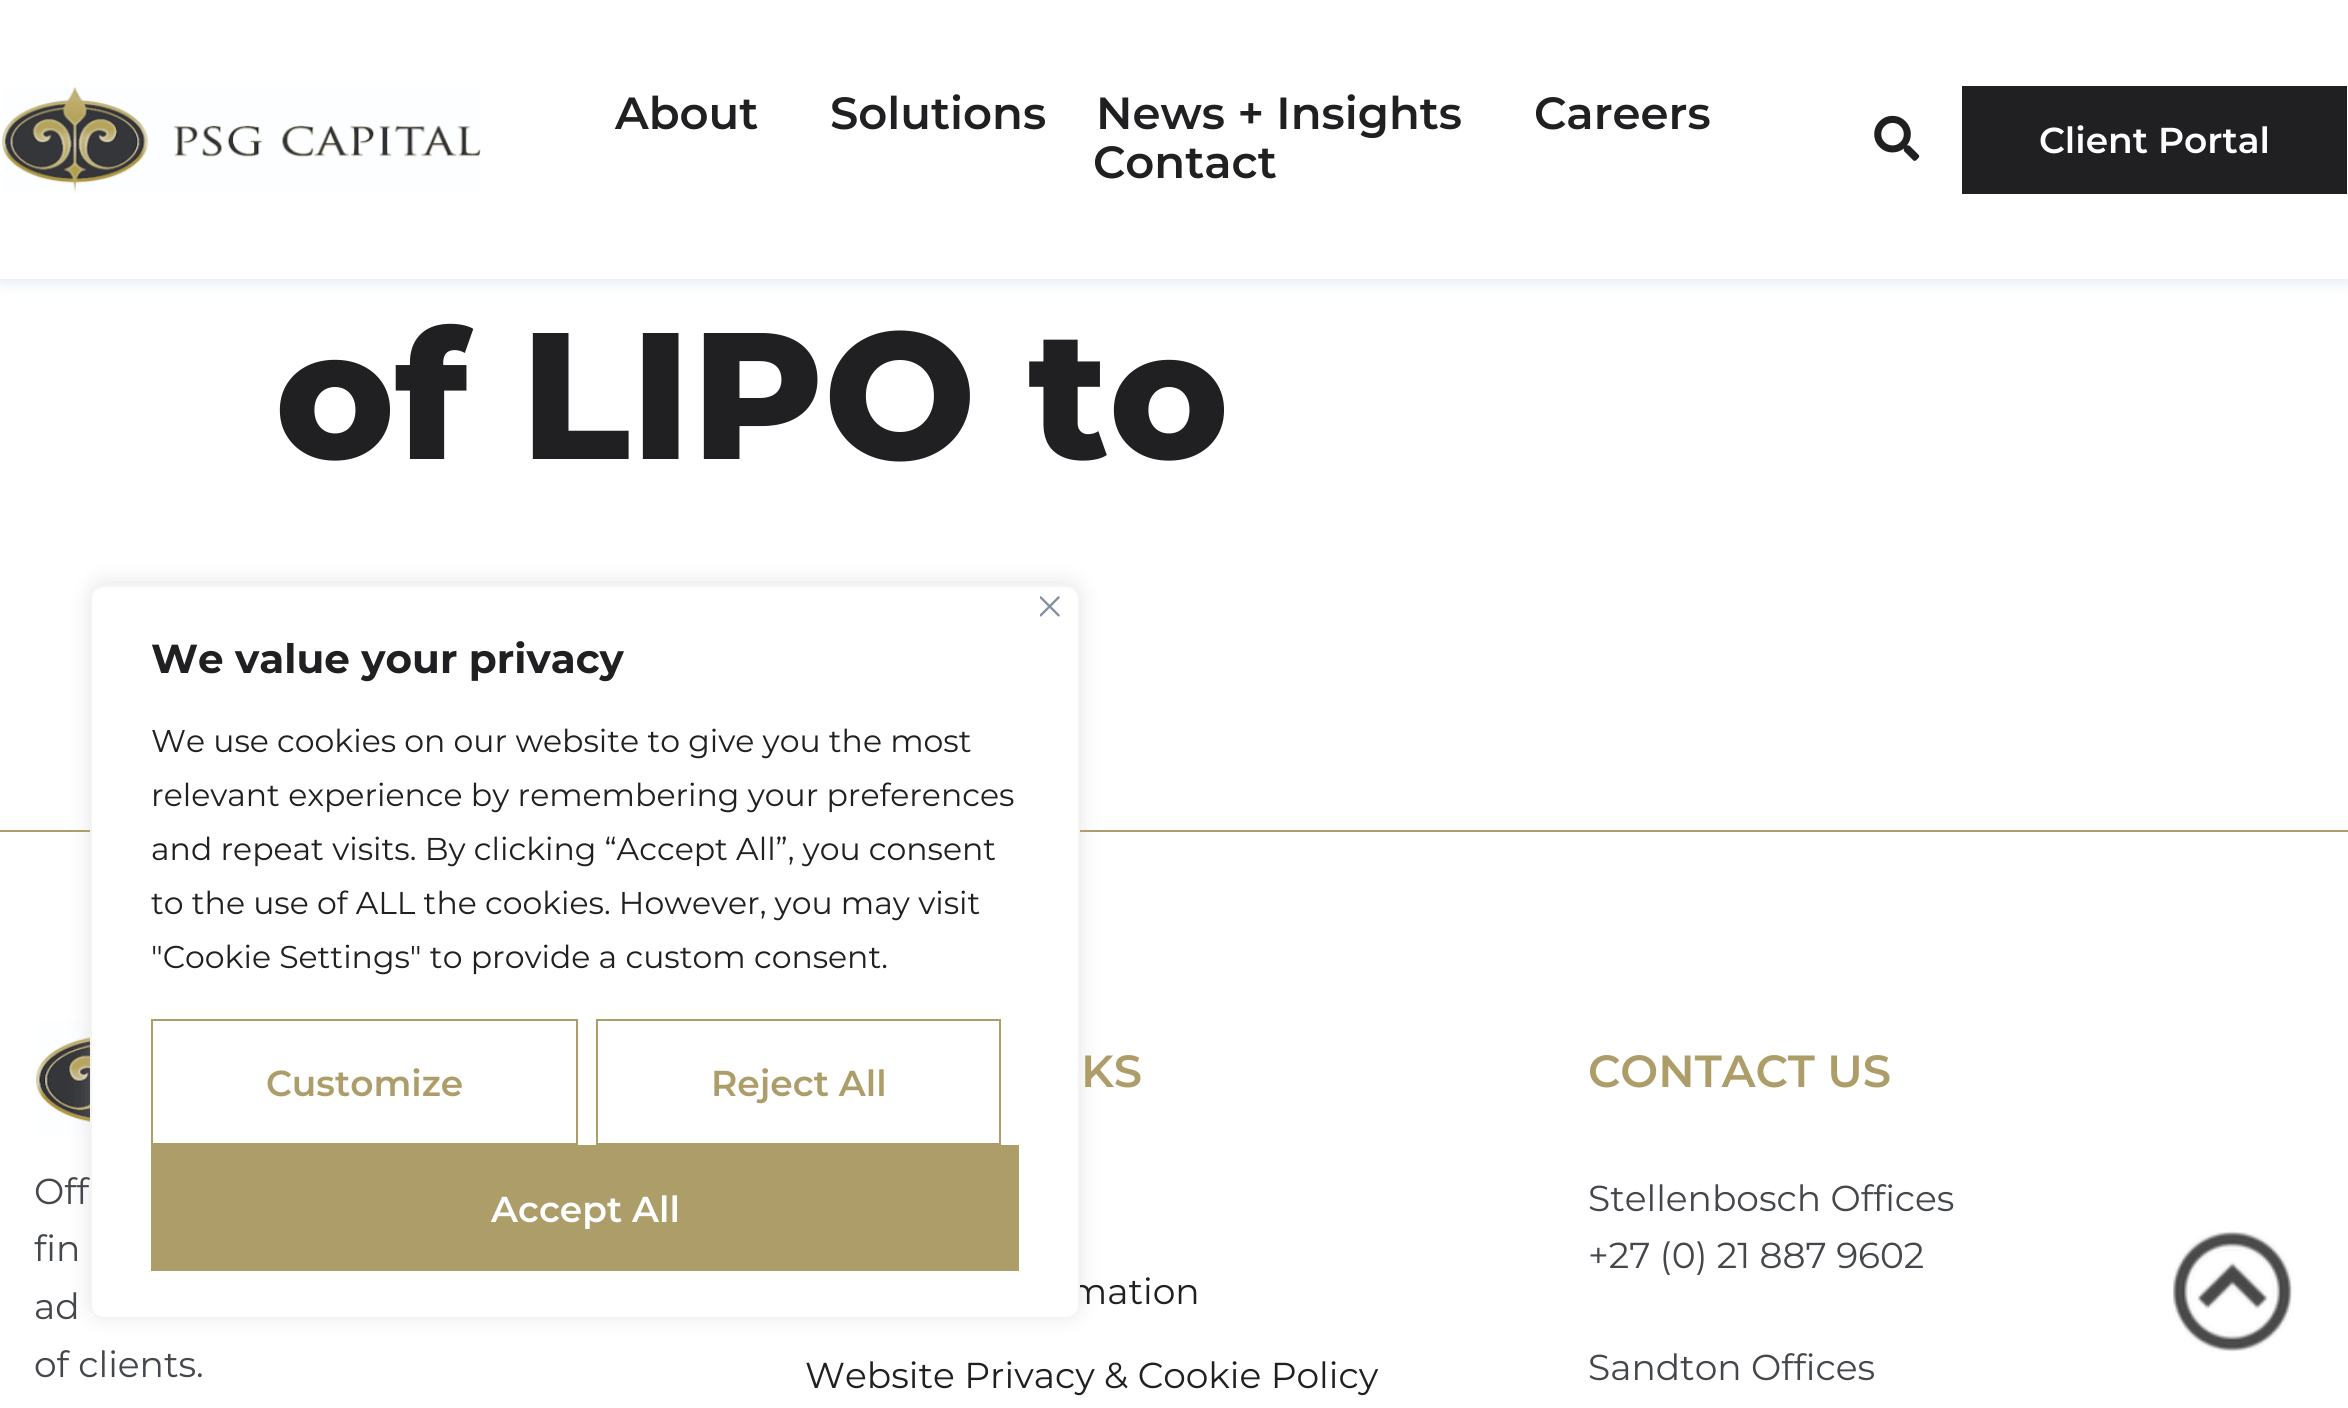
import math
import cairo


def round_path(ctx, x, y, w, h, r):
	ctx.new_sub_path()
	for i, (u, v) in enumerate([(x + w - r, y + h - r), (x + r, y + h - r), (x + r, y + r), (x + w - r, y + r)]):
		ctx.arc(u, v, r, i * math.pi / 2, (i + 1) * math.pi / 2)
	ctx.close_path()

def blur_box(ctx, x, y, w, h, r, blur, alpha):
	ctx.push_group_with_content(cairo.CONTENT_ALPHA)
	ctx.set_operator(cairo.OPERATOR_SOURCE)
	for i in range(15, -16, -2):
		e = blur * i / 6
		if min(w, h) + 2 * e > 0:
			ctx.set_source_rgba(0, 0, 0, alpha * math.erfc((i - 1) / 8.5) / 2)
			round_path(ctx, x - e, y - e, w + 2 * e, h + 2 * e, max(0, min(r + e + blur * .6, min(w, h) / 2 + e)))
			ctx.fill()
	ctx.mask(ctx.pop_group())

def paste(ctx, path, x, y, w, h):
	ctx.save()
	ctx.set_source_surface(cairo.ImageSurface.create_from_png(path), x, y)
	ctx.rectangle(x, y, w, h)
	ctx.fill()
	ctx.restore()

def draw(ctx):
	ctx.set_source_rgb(1, 1, 1)
	ctx.paint()
	ctx.set_source_rgb(0.843, 0.89, 0.949)
	blur_box(ctx, 0, 0, 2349, 279, 0, 9, 1)
	ctx.set_source_rgb(1, 1, 1)
	ctx.rectangle(0, 0, 2348, 279)
	ctx.fill()
	paste(ctx, 'media/1.png', 2, 87, 479, 107)
	ctx.select_font_face('Montserrat SemiBold')
	ctx.set_font_size(45)
	ctx.set_source_rgb(0.125, 0.122, 0.129)
	for x, y, s in [
		(615, 129, 'About'),
		(830, 129, 'Solutions'),
		(1096, 129, 'News + Insights'),
		(1534, 129, 'Careers'),
		(1093, 178, 'Contact'),
	]:
		ctx.move_to(x, y)
		ctx.show_text(s)
	paste(ctx, 'media/2.png', 1874, 115, 46, 46)
	ctx.rectangle(1962, 86, 385, 108)
	ctx.fill()
	ctx.set_font_size(36)
	ctx.set_source_rgb(1, 1, 1)
	ctx.move_to(2039, 153)
	ctx.show_text('Client Portal')
	ctx.select_font_face('Montserrat ExtraBold')
	ctx.set_font_size(180)
	ctx.set_source_rgb(0.125, 0.122, 0.129)
	ctx.move_to(275, 459)
	ctx.show_text('of LIPO to')
	ctx.set_source_rgb(0.675, 0.616, 0.412)
	ctx.rectangle(0, 830, 2348, 2)
	ctx.fill()
	paste(ctx, 'media/4.png', 36, 1021, 54, 115)
	ctx.set_source_rgb(0.675, 0.671, 0.671)
	blur_box(ctx, 90, 583, 990, 733, 14, 11, 0.3)
	ctx.select_font_face('Montserrat')
	ctx.set_font_size(36)
	ctx.set_source_rgb(0.125, 0.122, 0.129)
	ctx.move_to(1069, 1304)
	ctx.show_text('mation')
	ctx.set_source_rgb(1, 1, 1)
	round_path(ctx, 91, 586, 988, 732, 13)
	ctx.fill_preserve()
	ctx.set_source_rgb(0.957, 0.957, 0.957)
	ctx.stroke()
	paste(ctx, 'media/3.png', 1040, 596, 20, 21)
	ctx.select_font_face('Montserrat', cairo.FONT_SLANT_NORMAL, cairo.FONT_WEIGHT_BOLD)
	ctx.set_font_size(40.5)
	ctx.set_source_rgb(0.125, 0.122, 0.129)
	ctx.move_to(151, 673)
	ctx.show_text('We value your privacy')
	ctx.select_font_face('Montserrat')
	ctx.set_font_size(31.5)
	for x, y, s in [
		(151, 752, 'We use cookies on our website to give you the most'),
		(151, 806, 'relevant experience by remembering your preferences'),
		(151, 860, 'and repeat visits. By clicking “Accept All”, you consent'),
		(151, 914, 'to the use of ALL the cookies. However, you may visit'),
		(151, 968, '"Cookie Settings" to provide a custom consent.'),
	]:
		ctx.move_to(x, y)
		ctx.show_text(s)
	ctx.rectangle(152, 1020, 425, 124)
	ctx.set_source_rgb(0.675, 0.616, 0.412)
	ctx.stroke()
	ctx.select_font_face('Montserrat SemiBold')
	ctx.set_font_size(36)
	ctx.move_to(266, 1096)
	ctx.show_text('Customize')
	ctx.rectangle(597, 1020, 403, 124)
	ctx.stroke()
	ctx.move_to(711, 1096)
	ctx.show_text('Reject All')
	ctx.rectangle(151, 1145, 868, 126)
	ctx.fill()
	ctx.set_source_rgb(1, 1, 1)
	ctx.move_to(491, 1222)
	ctx.show_text('Accept All')
	ctx.select_font_face('Montserrat')
	ctx.set_source_rgb(0.267, 0.278, 0.294)
	for x, y, s in [
		(34, 1204, 'Off'),
		(34, 1261, 'fin'),
		(34, 1319, 'ad'),
		(34, 1377, 'of clients.'),
	]:
		ctx.move_to(x, y)
		ctx.show_text(s)
	ctx.select_font_face('Montserrat SemiBold')
	ctx.set_font_size(45)
	ctx.set_source_rgb(0.675, 0.616, 0.412)
	ctx.move_to(1081, 1087)
	ctx.show_text('KS')
	ctx.select_font_face('Montserrat')
	ctx.set_font_size(36)
	ctx.set_source_rgb(0.125, 0.122, 0.129)
	ctx.move_to(805, 1388)
	ctx.show_text('Website Privacy & Cookie Policy')
	ctx.select_font_face('Montserrat SemiBold')
	ctx.set_font_size(45)
	ctx.set_source_rgb(0.675, 0.616, 0.412)
	ctx.move_to(1588, 1087)
	ctx.show_text('CONTACT US')
	ctx.select_font_face('Montserrat')
	ctx.set_font_size(36)
	ctx.set_source_rgb(0.267, 0.278, 0.294)
	for x, y, s in [
		(1588, 1211, 'Stellenbosch Offices'),
		(1588, 1268, '+27 (0) 21 887 9602'),
		(1588, 1380, 'Sandton Offices'),
	]:
		ctx.move_to(x, y)
		ctx.show_text(s)
	paste(ctx, 'media/5.png', 2173, 1231, 120, 121)


surface = cairo.ImageSurface(cairo.FORMAT_RGB24, 2348, 1408)
ctx = cairo.Context(surface)
options = cairo.FontOptions()
options.set_hint_metrics(cairo.HINT_METRICS_OFF)
options.set_hint_style(cairo.HINT_STYLE_NONE)
ctx.set_font_options(options)
ctx.set_miter_limit(4)
draw(ctx)
surface.write_to_png('image.png')
